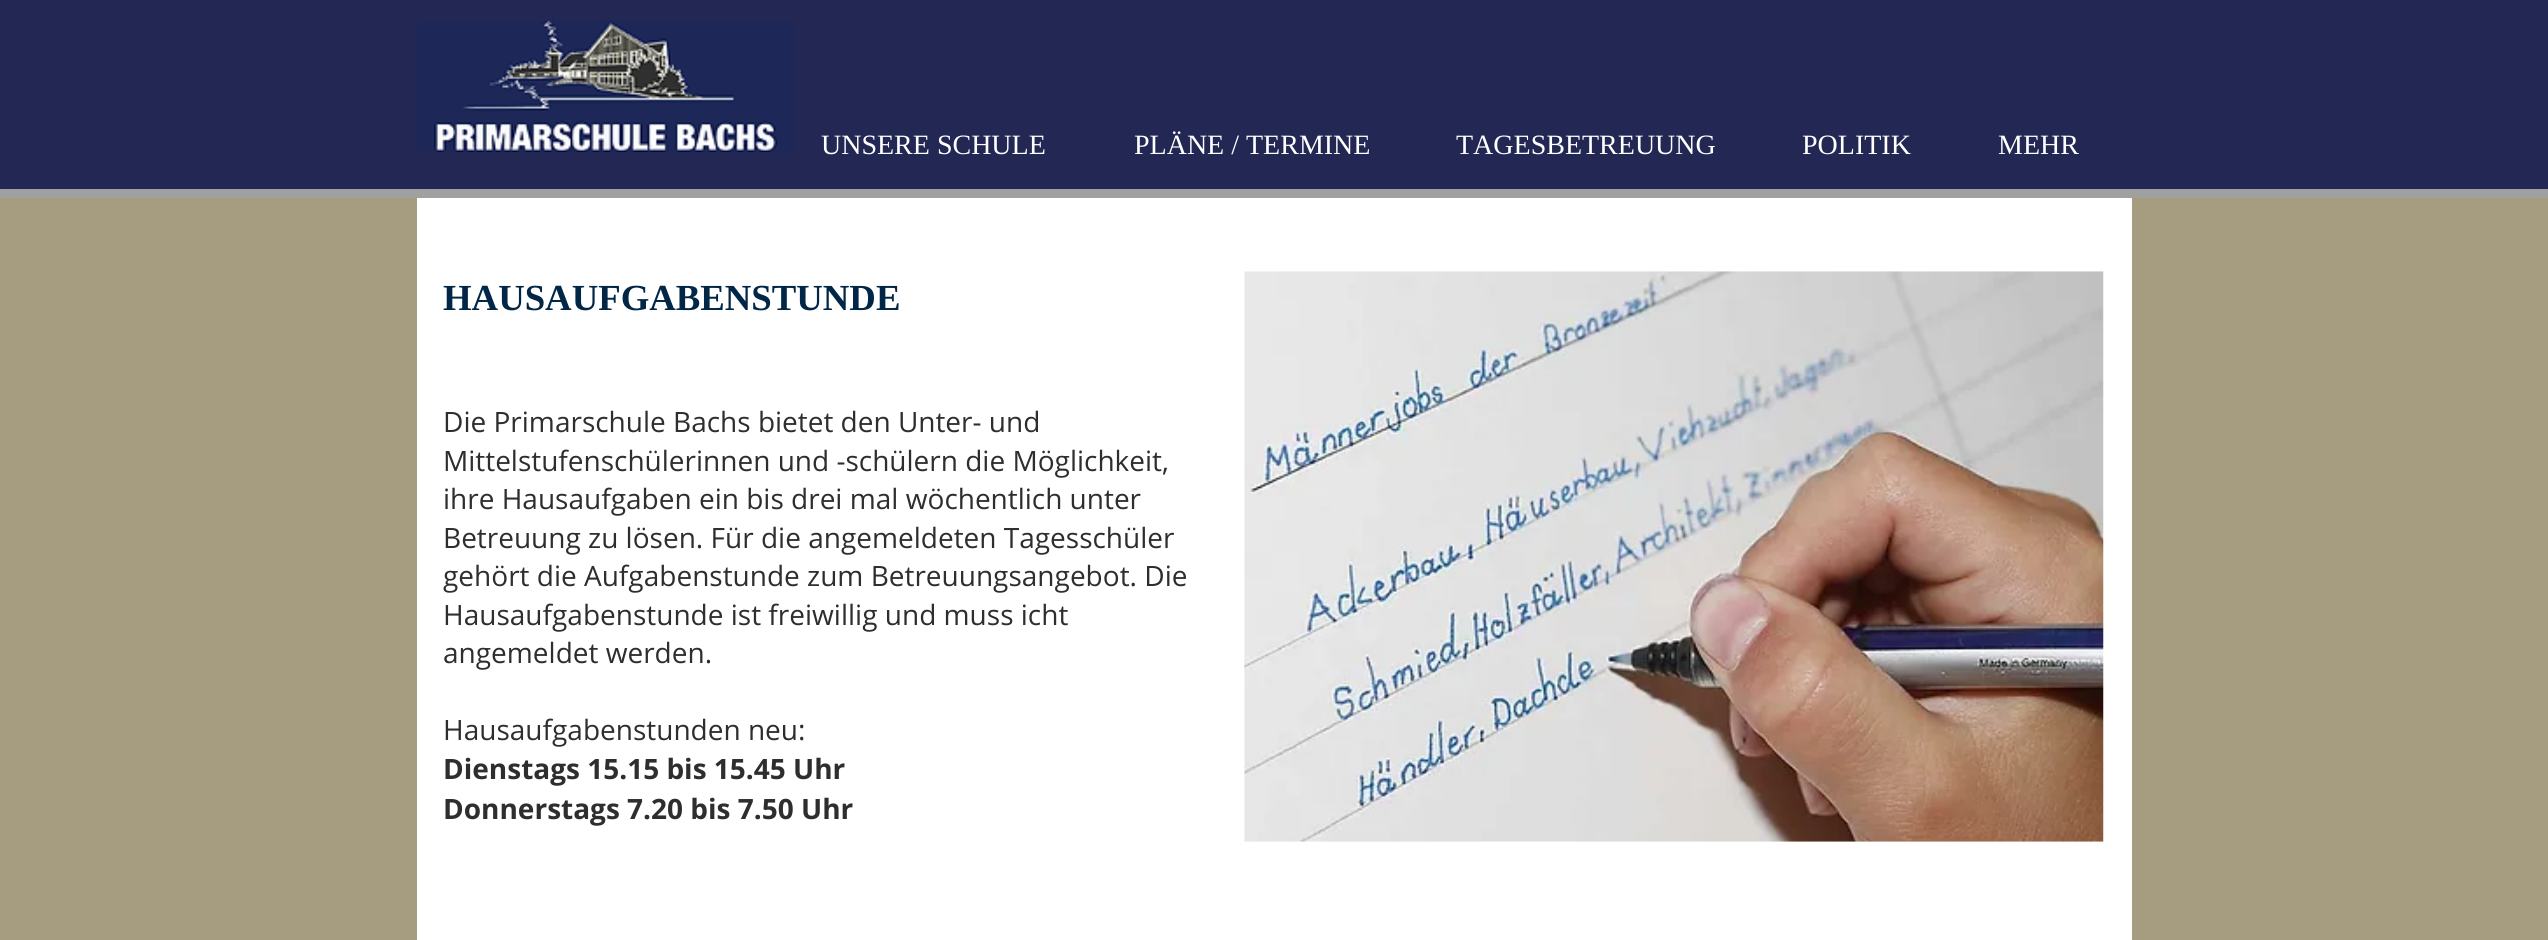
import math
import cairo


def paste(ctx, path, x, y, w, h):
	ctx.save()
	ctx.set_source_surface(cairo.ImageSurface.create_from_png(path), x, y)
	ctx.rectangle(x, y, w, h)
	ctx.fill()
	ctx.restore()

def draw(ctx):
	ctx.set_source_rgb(0.651, 0.612, 0.502)
	ctx.paint()
	ctx.set_source_rgb(0.133, 0.153, 0.329)
	ctx.rectangle(0, 0, 2548, 189)
	ctx.fill()
	ctx.set_source_rgb(0.627, 0.627, 0.624)
	ctx.rectangle(0, 189, 2548, 9)
	ctx.fill()
	paste(ctx, 'media/1.png', 417, 21, 377, 131)
	ctx.select_font_face('Liberation Serif')
	ctx.set_font_size(28)
	ctx.set_source_rgb(1, 1, 1)
	for x, y, s in [
		(821, 154, 'UNSERE SCHULE'),
		(1134, 154, 'PLÄNE / TERMINE'),
		(1456, 154, 'TAGESBETREUUNG'),
		(1802, 154, 'POLITIK'),
		(1998, 154, 'MEHR'),
	]:
		ctx.move_to(x, y)
		ctx.show_text(s)
	ctx.rectangle(417, 198, 1715, 742)
	ctx.fill()
	ctx.select_font_face('Liberation Serif', cairo.FONT_SLANT_NORMAL, cairo.FONT_WEIGHT_BOLD)
	ctx.set_font_size(36.75)
	ctx.set_source_rgb(0.004, 0.149, 0.275)
	ctx.move_to(443, 310)
	ctx.show_text('HAUSAUFGABENSTUNDE')
	ctx.select_font_face('Open Sans')
	ctx.set_font_size(28)
	ctx.set_source_rgb(0.184, 0.18, 0.18)
	for x, y, s in [
		(443, 432, 'Die Primarschule Bachs bietet den Unter- und'),
		(443, 471, 'Mittelstufenschülerinnen und -schülern die Möglichkeit,'),
		(443, 509, 'ihre Hausaufgaben ein bis drei mal wöchentlich unter'),
		(443, 548, 'Betreuung zu lösen. Für die angemeldeten Tagesschüler'),
		(443, 586, 'gehört die Aufgabenstunde zum Betreuungsangebot. Die'),
		(443, 625, 'Hausaufgabenstunde ist freiwillig und muss icht'),
		(443, 663, 'angemeldet werden.'),
		(443, 740, 'Hausaufgabenstunden neu:'),
	]:
		ctx.move_to(x, y)
		ctx.show_text(s)
	ctx.select_font_face('Open Sans', cairo.FONT_SLANT_NORMAL, cairo.FONT_WEIGHT_BOLD)
	ctx.move_to(443, 779)
	ctx.show_text('Dienstags 15.15 bis 15.45 Uhr')
	ctx.move_to(443, 819)
	ctx.show_text('Donnerstags 7.20 bis 7.50 Uhr')
	paste(ctx, 'media/2.png', 1244, 271, 860, 571)


surface = cairo.ImageSurface(cairo.FORMAT_RGB24, 2548, 940)
ctx = cairo.Context(surface)
options = cairo.FontOptions()
options.set_hint_metrics(cairo.HINT_METRICS_OFF)
options.set_hint_style(cairo.HINT_STYLE_NONE)
ctx.set_font_options(options)
ctx.set_miter_limit(4)
draw(ctx)
surface.write_to_png('image.png')
